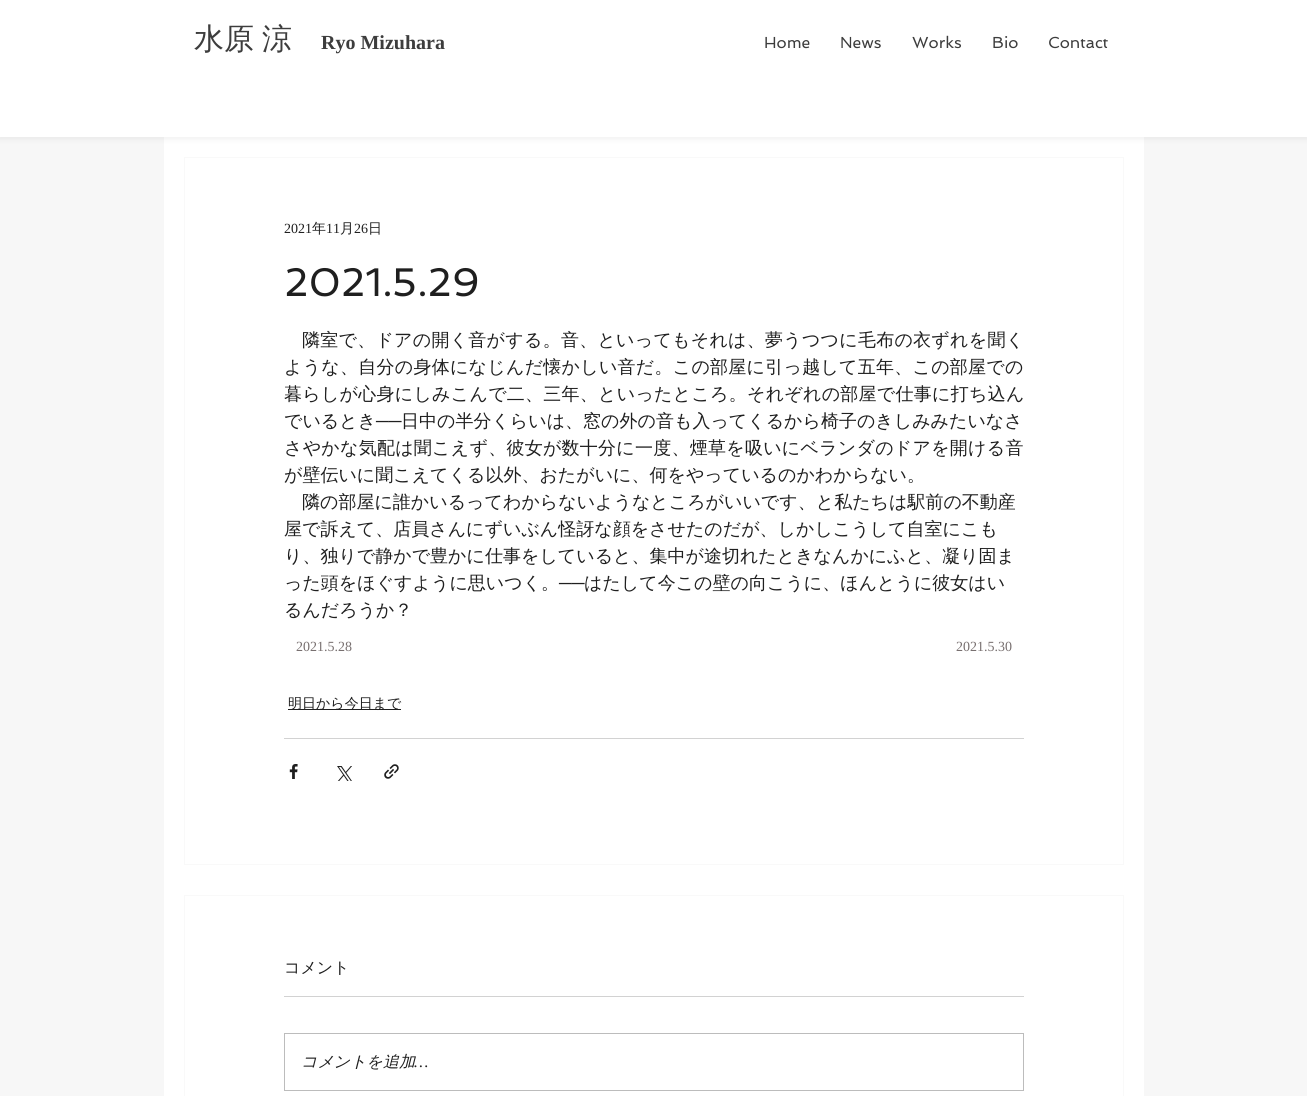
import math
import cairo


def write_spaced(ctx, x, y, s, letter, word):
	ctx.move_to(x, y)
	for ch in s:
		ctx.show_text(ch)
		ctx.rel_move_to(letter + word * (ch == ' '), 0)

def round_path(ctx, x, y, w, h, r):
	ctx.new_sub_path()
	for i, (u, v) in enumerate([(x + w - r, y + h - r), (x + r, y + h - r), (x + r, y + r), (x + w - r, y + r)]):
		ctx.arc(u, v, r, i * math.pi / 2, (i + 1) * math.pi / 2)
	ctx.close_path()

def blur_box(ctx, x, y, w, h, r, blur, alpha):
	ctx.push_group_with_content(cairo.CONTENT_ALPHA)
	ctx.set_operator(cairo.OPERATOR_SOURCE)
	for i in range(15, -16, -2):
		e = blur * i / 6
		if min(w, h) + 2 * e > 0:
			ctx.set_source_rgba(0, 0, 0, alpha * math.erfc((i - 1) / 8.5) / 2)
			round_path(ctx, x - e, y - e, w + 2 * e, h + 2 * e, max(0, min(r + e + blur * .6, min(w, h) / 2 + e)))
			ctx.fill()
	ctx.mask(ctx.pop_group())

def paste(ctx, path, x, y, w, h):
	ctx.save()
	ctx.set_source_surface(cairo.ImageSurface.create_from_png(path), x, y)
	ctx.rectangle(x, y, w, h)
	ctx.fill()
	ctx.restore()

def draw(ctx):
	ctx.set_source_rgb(0.965, 0.965, 0.965)
	ctx.paint()
	ctx.set_source_rgb(1, 1, 1)
	ctx.rectangle(164, 137, 980, 959)
	ctx.fill()
	ctx.set_source_rgb(0, 0, 0)
	blur_box(ctx, -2, -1, 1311, 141, 0, 2.5, 0.05)
	ctx.set_source_rgb(1, 1, 1)
	ctx.rectangle(0, 0, 1307, 137)
	ctx.fill()
	ctx.select_font_face('WenQuanYi Zen Hei Medium')
	ctx.set_font_size(30)
	ctx.set_source_rgb(0.239, 0.239, 0.239)
	write_spaced(ctx, 194, 49, '水原 涼', 0, -1)
	ctx.select_font_face('Liberation Serif', cairo.FONT_SLANT_NORMAL, cairo.FONT_WEIGHT_BOLD)
	ctx.set_font_size(20)
	ctx.move_to(321, 49)
	ctx.show_text('Ryo Mizuhara')
	ctx.select_font_face('Spinnaker')
	ctx.set_font_size(16)
	for x, y, s in [
		(764, 48, 'Home'),
		(840, 48, 'News'),
		(912, 48, 'Works'),
		(992, 48, 'Bio'),
		(1048, 48, 'Contact'),
	]:
		ctx.move_to(x, y)
		ctx.show_text(s)
	ctx.rectangle(184.5, 157.5, 939, 707)
	ctx.set_source_rgb(0.973, 0.973, 0.973)
	ctx.set_line_width(1)
	ctx.stroke()
	ctx.select_font_face('Liberation Serif')
	ctx.set_font_size(14)
	ctx.set_source_rgb(0.122, 0.122, 0.122)
	ctx.move_to(284, 233)
	ctx.show_text('2021')
	ctx.select_font_face('WenQuanYi Zen Hei Medium')
	ctx.move_to(312, 233)
	ctx.show_text('年')
	ctx.select_font_face('Liberation Serif')
	ctx.move_to(326, 233)
	ctx.show_text('11')
	ctx.select_font_face('WenQuanYi Zen Hei Medium')
	ctx.move_to(340, 233)
	ctx.show_text('月')
	ctx.select_font_face('Liberation Serif')
	ctx.move_to(354, 233)
	ctx.show_text('26')
	ctx.select_font_face('WenQuanYi Zen Hei Medium')
	ctx.move_to(368, 233)
	ctx.show_text('日')
	ctx.select_font_face('Spinnaker')
	ctx.set_font_size(40)
	ctx.move_to(284, 296)
	ctx.show_text('2021.5.29')
	ctx.select_font_face('WenQuanYi Zen Hei Medium')
	ctx.set_font_size(18)
	for x, y, s in [
		(302, 346, '隣室で、ドアの開く音がする。音、といってもそれは、夢うつつに毛布の衣ずれを聞く'),
		(284, 373, 'ような、自分の身体になじんだ懐かしい音だ。この部屋に引っ越して五年、この部屋での'),
		(284, 400, '暮らしが心身にしみこんで二、三年、といったところ。それぞれの部屋で仕事に打ち込ん'),
	]:
		write_spaced(ctx, x, y, s, 0.25, 0)
	ctx.move_to(284, 427)
	ctx.show_text('でいるとき')
	ctx.select_font_face('Liberation Serif')
	ctx.move_to(376, 427)
	ctx.show_text('──')
	ctx.select_font_face('WenQuanYi Zen Hei Medium')
	ctx.move_to(401, 427)
	ctx.show_text('日中の半分くらいは、窓の外の音も入ってくるから椅子のきしみみたいなさ')
	write_spaced(ctx, 284, 454, 'さやかな気配は聞こえず、彼女が数十分に一度、煙草を吸いにベランダのドアを開ける音', 0.25, 0)
	for x, y, s in [
		(284, 481, 'が壁伝いに聞こえてくる以外、おたがいに、何をやっているのかわからない。'),
		(302, 508, '隣の部屋に誰かいるってわからないようなところがいいです、と私たちは駅前の不動産'),
		(284, 535, '屋で訴えて、店員さんにずいぶん怪訝な顔をさせたのだが、しかしこうして自室にこも'),
		(284, 562, 'り、独りで静かで豊かに仕事をしていると、集中が途切れたときなんかにふと、凝り固ま'),
		(284, 589, 'った頭をほぐすように思いつく。'),
	]:
		ctx.move_to(x, y)
		ctx.show_text(s)
	ctx.select_font_face('Liberation Serif')
	ctx.move_to(559, 589)
	ctx.show_text('──')
	ctx.select_font_face('WenQuanYi Zen Hei Medium')
	ctx.move_to(584, 589)
	ctx.show_text('はたして今この壁の向こうに、ほんとうに彼女はい')
	ctx.move_to(284, 616)
	ctx.show_text('るんだろうか？')
	ctx.select_font_face('Liberation Serif')
	ctx.set_font_size(14)
	ctx.set_source_rgb(0.471, 0.439, 0.439)
	ctx.move_to(296, 651)
	ctx.show_text('2021.5.28')
	ctx.move_to(956, 651)
	ctx.show_text('2021.5.30')
	ctx.set_source_rgb(0.122, 0.122, 0.122)
	ctx.rectangle(288, 709, 113, 1)
	ctx.fill()
	ctx.select_font_face('WenQuanYi Zen Hei Medium')
	ctx.move_to(288, 708)
	ctx.show_text('明日から今日まで')
	ctx.set_source_rgb(0.824, 0.824, 0.824)
	ctx.rectangle(284, 738, 740, 1)
	ctx.fill()
	paste(ctx, 'media/1.png', 289, 764, 9, 15)
	paste(ctx, 'media/2.png', 337, 766, 15, 15)
	paste(ctx, 'media/3.png', 384, 764, 15, 15)
	ctx.rectangle(184.5, 895.5, 939, 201)
	ctx.set_source_rgb(0.973, 0.973, 0.973)
	ctx.stroke()
	ctx.set_font_size(16)
	ctx.set_source_rgb(0.122, 0.122, 0.122)
	ctx.move_to(284, 973)
	ctx.show_text('コメント')
	ctx.set_source_rgb(0.824, 0.824, 0.824)
	ctx.rectangle(284, 996, 740, 1)
	ctx.fill()
	ctx.rectangle(284.5, 1033.5, 739, 57)
	ctx.set_source_rgb(0.737, 0.737, 0.737)
	ctx.stroke()
	ctx.select_font_face('WenQuanYi Zen Hei Medium', cairo.FONT_SLANT_ITALIC)
	ctx.set_source_rgb(0.122, 0.122, 0.122)
	ctx.move_to(301, 1067)
	ctx.show_text('コメントを追加')
	ctx.select_font_face('Liberation Serif', cairo.FONT_SLANT_ITALIC)
	ctx.move_to(414, 1067)
	ctx.show_text('…')


surface = cairo.ImageSurface(cairo.FORMAT_RGB24, 1307, 1096)
ctx = cairo.Context(surface)
options = cairo.FontOptions()
options.set_hint_metrics(cairo.HINT_METRICS_OFF)
options.set_hint_style(cairo.HINT_STYLE_NONE)
ctx.set_font_options(options)
ctx.set_miter_limit(4)
draw(ctx)
surface.write_to_png('image.png')
